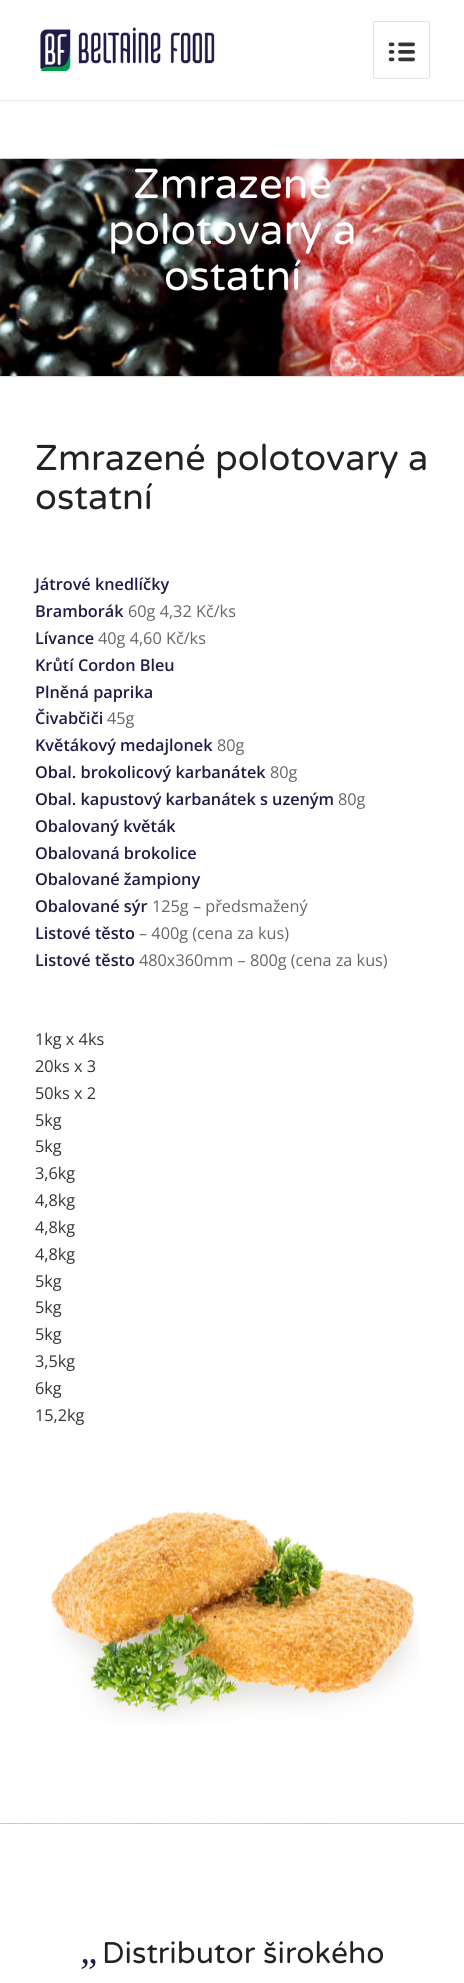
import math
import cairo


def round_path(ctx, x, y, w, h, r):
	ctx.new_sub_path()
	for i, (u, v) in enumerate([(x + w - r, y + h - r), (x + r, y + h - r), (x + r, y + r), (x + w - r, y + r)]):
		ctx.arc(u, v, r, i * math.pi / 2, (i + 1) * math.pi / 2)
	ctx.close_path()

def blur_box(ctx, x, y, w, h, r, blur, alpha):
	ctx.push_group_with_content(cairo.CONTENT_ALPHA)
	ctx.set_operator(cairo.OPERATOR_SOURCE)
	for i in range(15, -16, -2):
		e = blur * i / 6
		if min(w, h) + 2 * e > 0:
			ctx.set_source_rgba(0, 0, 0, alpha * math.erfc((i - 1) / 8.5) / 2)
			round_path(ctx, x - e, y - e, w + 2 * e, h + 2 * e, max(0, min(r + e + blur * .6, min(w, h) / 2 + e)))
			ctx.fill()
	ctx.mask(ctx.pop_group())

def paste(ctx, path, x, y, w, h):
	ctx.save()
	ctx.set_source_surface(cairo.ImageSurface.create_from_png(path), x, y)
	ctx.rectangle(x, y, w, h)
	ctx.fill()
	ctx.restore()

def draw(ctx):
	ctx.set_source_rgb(1, 1, 1)
	ctx.paint()
	ctx.set_source_rgb(0, 0, 0)
	blur_box(ctx, -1, -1, 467, 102, 0, 1, 0.1)
	ctx.set_source_rgb(1, 1, 1)
	ctx.rectangle(0, 0, 464, 100)
	ctx.fill()
	paste(ctx, 'media/1.png', 40, 27, 175, 45)
	round_path(ctx, 373.5, 21.5, 56, 57, 2)
	ctx.set_source_rgb(0.882, 0.882, 0.882)
	ctx.set_line_width(1)
	ctx.stroke()
	paste(ctx, 'media/2.png', 388, 42, 27, 20)
	paste(ctx, 'media/3.png', 0, 158, 464, 218)
	ctx.select_font_face('Varela Round')
	ctx.set_font_size(42)
	ctx.set_source_rgb(1, 1, 1)
	for x, y, s in [
		(133, 198, 'Zmrazené'),
		(108, 244, 'polotovary a'),
		(164, 290, 'ostatní'),
	]:
		ctx.move_to(x, y)
		ctx.show_text(s)
	ctx.set_source_rgb(0.882, 0.882, 0.882)
	ctx.rectangle(0, 376, 464, 1)
	ctx.fill()
	ctx.set_font_size(36)
	ctx.set_source_rgb(0.133, 0.133, 0.133)
	ctx.move_to(35, 470)
	ctx.show_text('Zmrazené polotovary a')
	ctx.move_to(35, 509)
	ctx.show_text('ostatní')
	ctx.select_font_face('Open Sans SemiBold')
	ctx.set_font_size(16.25)
	ctx.set_source_rgb(0.125, 0.106, 0.278)
	ctx.move_to(35, 590)
	ctx.show_text('Játrové knedlíčky')
	ctx.move_to(35, 617)
	ctx.show_text('Bramborák')
	ctx.select_font_face('Open Sans')
	ctx.set_source_rgb(0.4, 0.4, 0.4)
	ctx.move_to(128, 617)
	ctx.show_text('60g 4,32 Kč/ks')
	ctx.select_font_face('Open Sans SemiBold')
	ctx.set_source_rgb(0.125, 0.106, 0.278)
	ctx.move_to(35, 644)
	ctx.show_text('Lívance')
	ctx.select_font_face('Open Sans')
	ctx.set_source_rgb(0.4, 0.4, 0.4)
	ctx.move_to(98, 644)
	ctx.show_text('40g 4,60 Kč/ks')
	ctx.select_font_face('Open Sans SemiBold')
	ctx.set_source_rgb(0.125, 0.106, 0.278)
	for x, y, s in [
		(35, 671, 'Krůtí Cordon Bleu'),
		(35, 698, 'Plněná paprika'),
		(35, 724, 'Čivabčiči'),
	]:
		ctx.move_to(x, y)
		ctx.show_text(s)
	ctx.select_font_face('Open Sans')
	ctx.set_source_rgb(0.4, 0.4, 0.4)
	ctx.move_to(107, 724)
	ctx.show_text('45g')
	ctx.select_font_face('Open Sans SemiBold')
	ctx.set_source_rgb(0.125, 0.106, 0.278)
	ctx.move_to(35, 751)
	ctx.show_text('Květákový medajlonek')
	ctx.select_font_face('Open Sans')
	ctx.set_source_rgb(0.4, 0.4, 0.4)
	ctx.move_to(217, 751)
	ctx.show_text('80g')
	ctx.select_font_face('Open Sans SemiBold')
	ctx.set_source_rgb(0.125, 0.106, 0.278)
	ctx.move_to(35, 778)
	ctx.show_text('Obal. brokolicový karbanátek')
	ctx.select_font_face('Open Sans')
	ctx.set_source_rgb(0.4, 0.4, 0.4)
	ctx.move_to(270, 778)
	ctx.show_text('80g')
	ctx.select_font_face('Open Sans SemiBold')
	ctx.set_source_rgb(0.125, 0.106, 0.278)
	ctx.move_to(35, 805)
	ctx.show_text('Obal. kapustový karbanátek s uzeným')
	ctx.select_font_face('Open Sans')
	ctx.set_source_rgb(0.4, 0.4, 0.4)
	ctx.move_to(338, 805)
	ctx.show_text('80g')
	ctx.select_font_face('Open Sans SemiBold')
	ctx.set_source_rgb(0.125, 0.106, 0.278)
	for x, y, s in [
		(35, 832, 'Obalovaný květák'),
		(35, 859, 'Obalovaná brokolice'),
		(35, 885, 'Obalované žampiony'),
		(35, 912, 'Obalované sýr'),
	]:
		ctx.move_to(x, y)
		ctx.show_text(s)
	ctx.select_font_face('Open Sans')
	ctx.set_source_rgb(0.4, 0.4, 0.4)
	ctx.move_to(152, 912)
	ctx.show_text('125g – předsmažený')
	ctx.select_font_face('Open Sans SemiBold')
	ctx.set_source_rgb(0.125, 0.106, 0.278)
	ctx.move_to(35, 939)
	ctx.show_text('Listové těsto')
	ctx.select_font_face('Open Sans')
	ctx.set_source_rgb(0.4, 0.4, 0.4)
	ctx.move_to(139, 939)
	ctx.show_text('– 400g (cena za kus)')
	ctx.select_font_face('Open Sans SemiBold')
	ctx.set_source_rgb(0.125, 0.106, 0.278)
	ctx.move_to(35, 966)
	ctx.show_text('Listové těsto')
	ctx.select_font_face('Open Sans')
	ctx.set_source_rgb(0.4, 0.4, 0.4)
	ctx.move_to(139, 966)
	ctx.show_text('480x360mm – 800g (cena za kus)')
	ctx.set_source_rgb(0.2, 0.2, 0.2)
	for x, y, s in [
		(35, 1045, '1kg x 4ks'),
		(35, 1072, '20ks x 3'),
		(35, 1099, '50ks x 2'),
		(35, 1126, '5kg'),
		(35, 1152, '5kg'),
		(35, 1179, '3,6kg'),
		(35, 1206, '4,8kg'),
		(35, 1233, '4,8kg'),
		(35, 1260, '4,8kg'),
		(35, 1287, '5kg'),
		(35, 1313, '5kg'),
		(35, 1340, '5kg'),
		(35, 1367, '3,5kg'),
		(35, 1394, '6kg'),
		(35, 1421, '15,2kg'),
	]:
		ctx.move_to(x, y)
		ctx.show_text(s)
	paste(ctx, 'media/4.png', 51, 1510, 369, 214)
	paste(ctx, 'media/5.png', 0, 1823, 464, 1)
	ctx.select_font_face('Liberation Serif', cairo.FONT_SLANT_ITALIC)
	ctx.set_font_size(39)
	ctx.set_source_rgb(0.125, 0.106, 0.278)
	ctx.move_to(80, 1963)
	ctx.show_text('„')
	ctx.select_font_face('Varela Round')
	ctx.set_font_size(30)
	ctx.set_source_rgb(0.133, 0.133, 0.133)
	ctx.move_to(102, 1963)
	ctx.show_text('Distributor širokého')


surface = cairo.ImageSurface(cairo.FORMAT_RGB24, 464, 1983)
ctx = cairo.Context(surface)
options = cairo.FontOptions()
options.set_hint_metrics(cairo.HINT_METRICS_OFF)
options.set_hint_style(cairo.HINT_STYLE_NONE)
ctx.set_font_options(options)
ctx.set_miter_limit(4)
draw(ctx)
surface.write_to_png('image.png')
